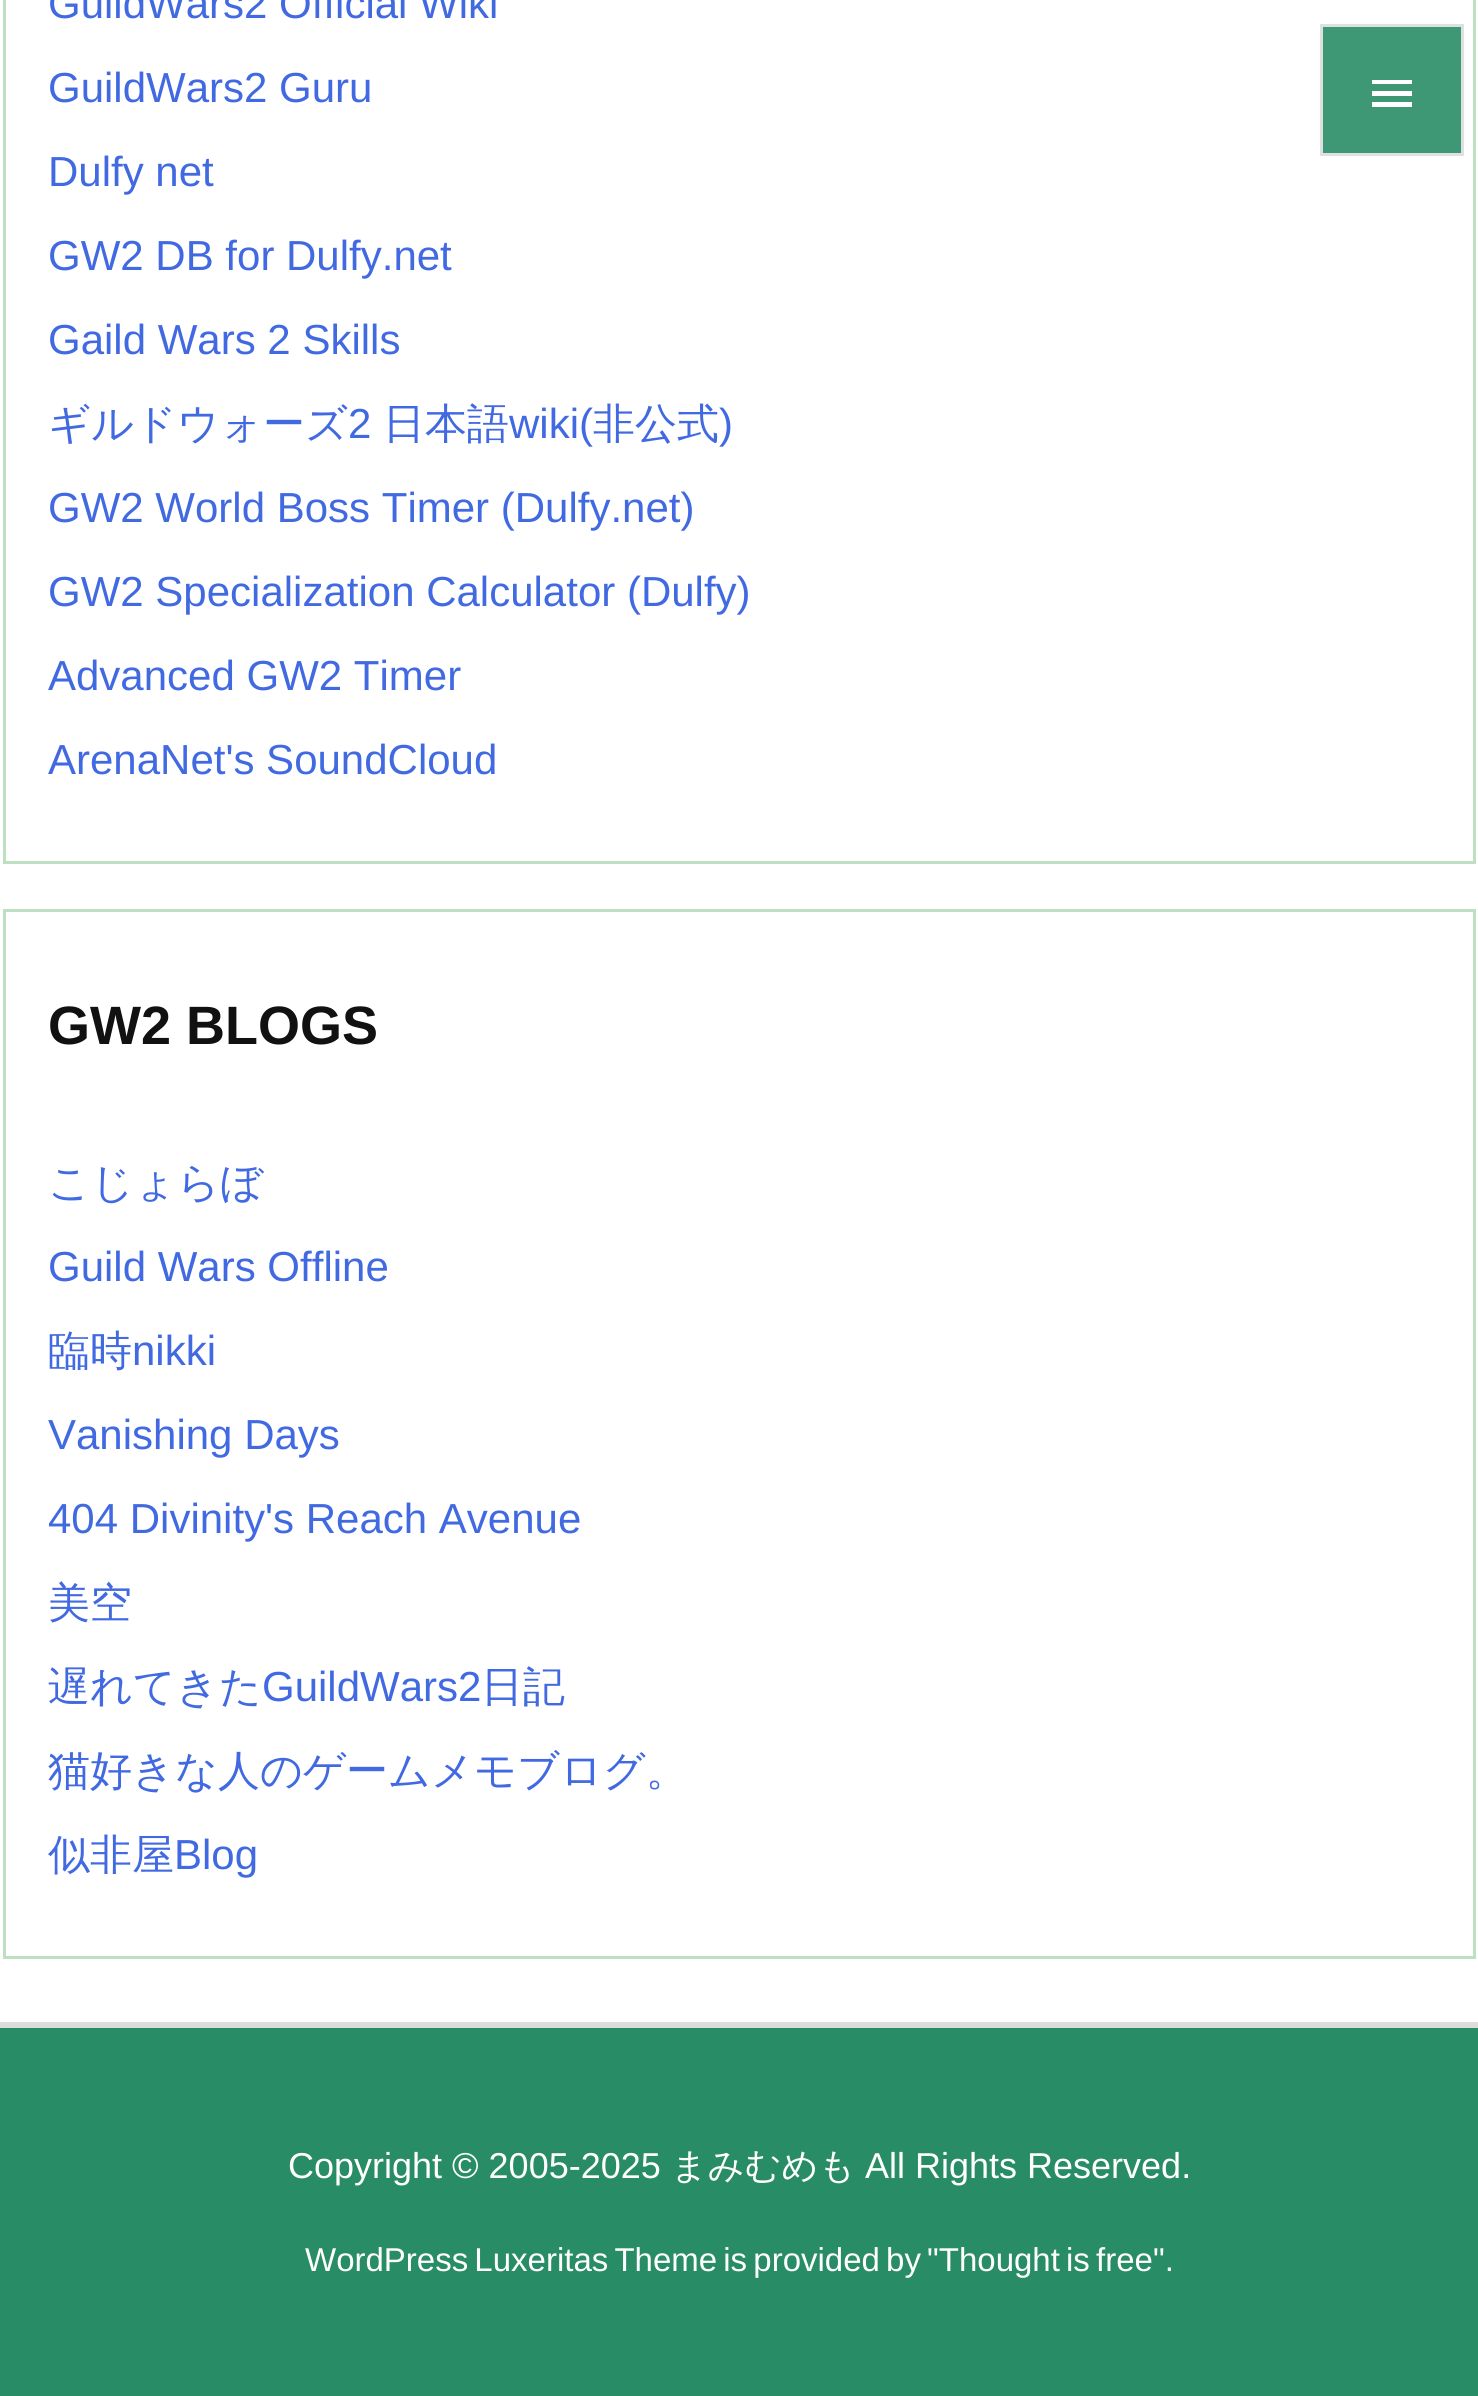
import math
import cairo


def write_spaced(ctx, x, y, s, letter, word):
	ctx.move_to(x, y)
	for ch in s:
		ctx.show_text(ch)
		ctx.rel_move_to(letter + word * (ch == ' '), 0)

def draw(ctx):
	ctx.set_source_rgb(1, 1, 1)
	ctx.paint()
	ctx.rectangle(4.5, -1.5, 1470, 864)
	ctx.set_source_rgb(0.745, 0.878, 0.761)
	ctx.set_line_width(3)
	ctx.stroke()
	ctx.select_font_face('Liberation Sans')
	ctx.set_font_size(42)
	ctx.set_source_rgb(0.255, 0.412, 0.882)
	for x, y, s in [
		(48, 18, 'GuildWars2 Official Wiki'),
		(48, 102, 'GuildWars2 Guru'),
		(48, 186, 'Dulfy net'),
		(48, 270, 'GW2 DB for Dulfy.net'),
		(48, 354, 'Gaild Wars 2 Skills'),
	]:
		ctx.move_to(x, y)
		ctx.show_text(s)
	ctx.select_font_face('WenQuanYi Zen Hei Medium')
	ctx.move_to(48, 438)
	ctx.show_text('ギルドウォーズ')
	ctx.select_font_face('Liberation Sans')
	ctx.move_to(348, 438)
	ctx.show_text('2')
	ctx.select_font_face('WenQuanYi Zen Hei Medium')
	ctx.move_to(383, 438)
	ctx.show_text('日本語')
	ctx.select_font_face('Liberation Sans')
	ctx.move_to(509, 438)
	ctx.show_text('wiki(')
	ctx.select_font_face('WenQuanYi Zen Hei Medium')
	ctx.move_to(593, 438)
	ctx.show_text('非公式')
	ctx.select_font_face('Liberation Sans')
	for x, y, s in [
		(719, 438, ')'),
		(48, 522, 'GW2 World Boss Timer (Dulfy.net)'),
		(48, 606, 'GW2 Specialization Calculator (Dulfy)'),
		(48, 690, 'Advanced GW2 Timer'),
		(48, 774, 'ArenaNet\'s SoundCloud'),
	]:
		ctx.move_to(x, y)
		ctx.show_text(s)
	ctx.rectangle(4.5, 910.5, 1470, 1047)
	ctx.set_source_rgb(0.745, 0.878, 0.761)
	ctx.stroke()
	ctx.select_font_face('Liberation Sans', cairo.FONT_SLANT_NORMAL, cairo.FONT_WEIGHT_BOLD)
	ctx.set_font_size(54)
	ctx.set_source_rgb(0.067, 0.067, 0.067)
	ctx.move_to(48, 1044)
	ctx.show_text('GW2 BLOGS')
	ctx.select_font_face('WenQuanYi Zen Hei Medium')
	ctx.set_font_size(42)
	ctx.set_source_rgb(0.255, 0.412, 0.882)
	ctx.move_to(48, 1197)
	ctx.show_text('こじょらぼ')
	ctx.select_font_face('Liberation Sans')
	ctx.move_to(48, 1281)
	ctx.show_text('Guild Wars Offline')
	ctx.select_font_face('WenQuanYi Zen Hei Medium')
	ctx.move_to(48, 1365)
	ctx.show_text('臨時')
	ctx.select_font_face('Liberation Sans')
	for x, y, s in [
		(132, 1365, 'nikki'),
		(48, 1449, 'Vanishing Days'),
		(48, 1533, '404 Divinity\'s Reach Avenue'),
	]:
		ctx.move_to(x, y)
		ctx.show_text(s)
	ctx.select_font_face('WenQuanYi Zen Hei Medium')
	ctx.move_to(48, 1617)
	ctx.show_text('美空')
	ctx.move_to(48, 1701)
	ctx.show_text('遅れてきた')
	ctx.select_font_face('Liberation Sans')
	ctx.move_to(262, 1701)
	ctx.show_text('GuildWars2')
	ctx.select_font_face('WenQuanYi Zen Hei Medium')
	for x, y, s in [
		(481, 1701, '日記'),
		(48, 1785, '猫好きな人のゲームメモブログ。'),
		(48, 1869, '似非屋'),
	]:
		ctx.move_to(x, y)
		ctx.show_text(s)
	ctx.select_font_face('Liberation Sans')
	ctx.move_to(174, 1869)
	ctx.show_text('Blog')
	ctx.set_source_rgb(0.243, 0.596, 0.459)
	ctx.rectangle(1321.5, 25.5, 141, 129)
	ctx.fill_preserve()
	ctx.set_source_rgb(0.878, 0.878, 0.878)
	ctx.stroke()
	ctx.set_source_rgb(1, 1, 1)
	ctx.new_path()
	ctx.move_to(1372, 80)
	ctx.line_to(1412, 80)
	ctx.line_to(1412, 84)
	ctx.line_to(1372, 84)
	ctx.close_path()
	ctx.move_to(1372, 96)
	ctx.line_to(1372, 91)
	ctx.line_to(1412, 91)
	ctx.line_to(1412, 96)
	ctx.close_path()
	ctx.move_to(1372, 107)
	ctx.line_to(1372, 102)
	ctx.line_to(1412, 102)
	ctx.line_to(1412, 107)
	ctx.close_path()
	ctx.fill()
	ctx.set_source_rgb(0.867, 0.867, 0.867)
	ctx.rectangle(0, 2022, 1478, 6)
	ctx.fill()
	ctx.set_source_rgb(0.157, 0.549, 0.4)
	ctx.rectangle(0, 2028, 1478, 368)
	ctx.fill()
	ctx.set_font_size(36)
	ctx.set_source_rgb(1, 1, 1)
	ctx.move_to(288, 2178)
	ctx.show_text('Copyright © 2005-2025')
	ctx.select_font_face('WenQuanYi Zen Hei Medium')
	ctx.move_to(671, 2178)
	ctx.show_text('まみむめも')
	ctx.select_font_face('Liberation Sans')
	ctx.move_to(865, 2178)
	ctx.show_text('All Rights Reserved.')
	ctx.set_font_size(33)
	write_spaced(ctx, 305, 2271, 'WordPress Luxeritas Theme is provided by "Thought is free', 0, -3)
	ctx.move_to(1153, 2271)
	ctx.show_text('".')


surface = cairo.ImageSurface(cairo.FORMAT_RGB24, 1478, 2396)
ctx = cairo.Context(surface)
options = cairo.FontOptions()
options.set_hint_metrics(cairo.HINT_METRICS_OFF)
options.set_hint_style(cairo.HINT_STYLE_NONE)
ctx.set_font_options(options)
ctx.set_miter_limit(4)
draw(ctx)
surface.write_to_png('image.png')
